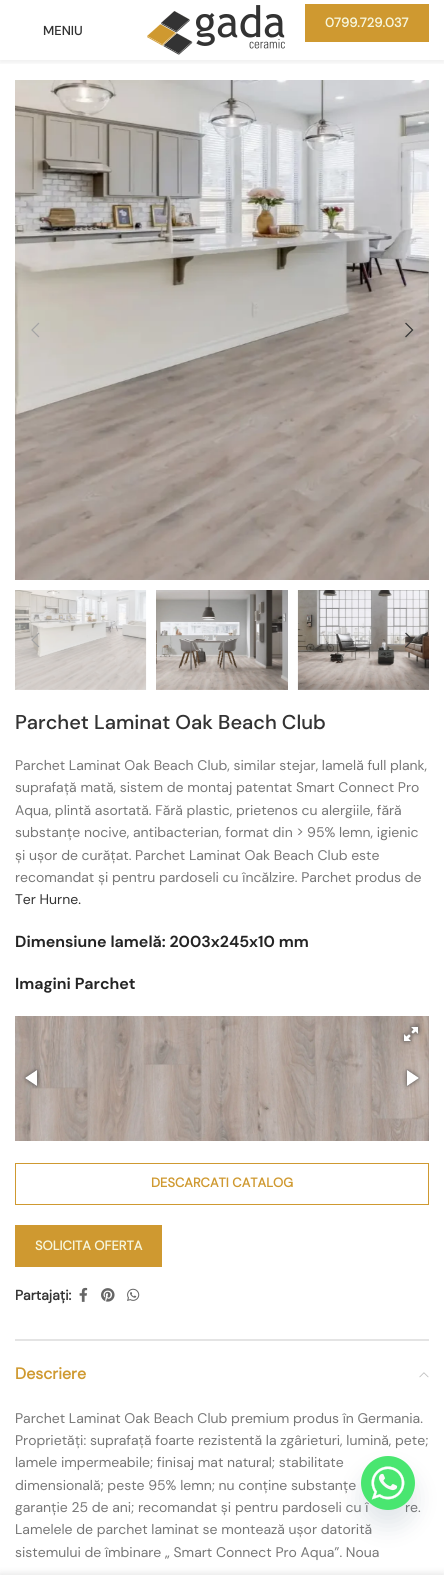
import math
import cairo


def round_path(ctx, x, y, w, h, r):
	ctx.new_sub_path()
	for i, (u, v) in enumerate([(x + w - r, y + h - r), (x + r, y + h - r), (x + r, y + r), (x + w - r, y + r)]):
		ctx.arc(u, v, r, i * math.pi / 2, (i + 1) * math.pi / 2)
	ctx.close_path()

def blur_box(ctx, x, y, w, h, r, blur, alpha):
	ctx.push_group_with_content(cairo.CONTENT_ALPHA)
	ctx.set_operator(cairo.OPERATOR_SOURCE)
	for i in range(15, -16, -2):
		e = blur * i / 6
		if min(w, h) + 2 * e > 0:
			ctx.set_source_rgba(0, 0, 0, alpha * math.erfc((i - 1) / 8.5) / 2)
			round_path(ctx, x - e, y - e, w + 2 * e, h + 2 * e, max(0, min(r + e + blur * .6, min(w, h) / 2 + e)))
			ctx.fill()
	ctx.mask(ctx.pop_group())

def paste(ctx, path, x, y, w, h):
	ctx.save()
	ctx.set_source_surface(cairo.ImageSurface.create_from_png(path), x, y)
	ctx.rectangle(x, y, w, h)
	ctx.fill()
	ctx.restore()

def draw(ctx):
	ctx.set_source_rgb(1, 1, 1)
	ctx.paint()
	ctx.save()
	ctx.rectangle(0, 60, 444, 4)
	ctx.clip()
	ctx.set_source_rgb(0, 0, 0)
	blur_box(ctx, 0, 1, 444, 60, 0, 4, 0.1)
	ctx.restore()
	paste(ctx, 'media/1.png', 147, 5, 138, 50)
	ctx.set_source_rgb(0.812, 0.6, 0.188)
	ctx.rectangle(305, 4, 124, 38)
	ctx.fill()
	ctx.select_font_face('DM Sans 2', cairo.FONT_SLANT_NORMAL, cairo.FONT_WEIGHT_BOLD)
	ctx.set_font_size(13)
	ctx.set_source_rgb(0.961, 0.961, 0.863)
	ctx.move_to(325, 27)
	ctx.show_text('0799.729.037')
	ctx.select_font_face('DM Sans Medium')
	ctx.set_source_rgb(0.2, 0.2, 0.2)
	ctx.move_to(43, 35)
	ctx.show_text('MENIU')
	paste(ctx, 'media/2.png', 15, 80, 414, 500)
	paste(ctx, 'media/3.png', 31, 322, 9, 16)
	paste(ctx, 'media/4.png', 405, 322, 9, 16)
	paste(ctx, 'media/5.png', 15, 590, 132, 100)
	paste(ctx, 'media/6.png', 156, 590, 132, 100)
	paste(ctx, 'media/7.png', 297, 590, 132, 100)
	paste(ctx, 'media/8.png', 31, 632, 9, 16)
	paste(ctx, 'media/9.png', 405, 632, 9, 16)
	ctx.set_font_size(20)
	ctx.move_to(15, 729)
	ctx.show_text('Parchet Laminat Oak Beach Club')
	ctx.select_font_face('DM Sans')
	ctx.set_font_size(14)
	ctx.set_source_rgb(0.467, 0.467, 0.467)
	for x, y, s in [
		(15, 770, 'Parchet Laminat Oak Beach Club, similar stejar, lamelă full plank,'),
		(15, 792, 'suprafață mată, sistem de montaj patentat Smart Connect Pro'),
		(15, 815, 'Aqua, plintă asortată. Fără plastic, prietenos cu alergiile, fără'),
		(15, 837, 'substanțe nocive, antibacterian, format din > 95% lemn, igienic'),
		(15, 860, 'și ușor de curățat. Parchet Laminat Oak Beach Club este'),
		(15, 882, 'recomandat și pentru pardoseli cu încălzire. Parchet produs de'),
	]:
		ctx.move_to(x, y)
		ctx.show_text(s)
	ctx.set_source_rgb(0.2, 0.2, 0.2)
	ctx.move_to(15, 904)
	ctx.show_text('Ter Hurne.')
	ctx.select_font_face('DM Sans', cairo.FONT_SLANT_NORMAL, cairo.FONT_WEIGHT_BOLD)
	ctx.set_font_size(16)
	ctx.set_source_rgb(0.141, 0.141, 0.141)
	ctx.move_to(15, 947)
	ctx.show_text('Dimensiune lamelă: 2003x245x10 mm')
	ctx.move_to(15, 989)
	ctx.show_text('Imagini Parchet')
	paste(ctx, 'media/10.png', 15, 1016, 414, 125)
	paste(ctx, 'media/11.png', 400, 1023, 22, 22)
	paste(ctx, 'media/12.png', 22, 1067, 20, 22)
	paste(ctx, 'media/13.png', 402, 1067, 20, 22)
	ctx.rectangle(15.5, 1163.5, 413, 41)
	ctx.set_source_rgb(0.812, 0.6, 0.188)
	ctx.set_line_width(1)
	ctx.stroke()
	ctx.select_font_face('DM Sans 2', cairo.FONT_SLANT_NORMAL, cairo.FONT_WEIGHT_BOLD)
	ctx.set_font_size(13)
	ctx.move_to(151, 1187)
	ctx.show_text('DESCARCATI CATALOG')
	ctx.rectangle(15, 1225, 147, 42)
	ctx.fill()
	ctx.set_source_rgb(0.961, 0.961, 0.863)
	ctx.move_to(35, 1250)
	ctx.show_text('SOLICITA OFERTA')
	ctx.set_font_size(14)
	ctx.set_source_rgb(0.2, 0.2, 0.2)
	ctx.move_to(15, 1300)
	ctx.show_text('Partajați:')
	paste(ctx, 'media/14.png', 79, 1287, 9, 15)
	paste(ctx, 'media/15.png', 101, 1288, 14, 14)
	paste(ctx, 'media/16.png', 127, 1288, 13, 13)
	ctx.set_source_rgb(0.894, 0.894, 0.894)
	ctx.rectangle(15, 1339, 414, 2)
	ctx.fill()
	ctx.set_font_size(16)
	ctx.set_source_rgb(0.812, 0.6, 0.188)
	ctx.move_to(15, 1379)
	ctx.show_text('Descriere')
	paste(ctx, 'media/17.png', 419, 1372, 10, 6)
	ctx.select_font_face('DM Sans')
	ctx.set_font_size(14)
	ctx.set_source_rgb(0.467, 0.467, 0.467)
	for x, y, s in [
		(15, 1423, 'Parchet Laminat Oak Beach Club premium produs în Germania.'),
		(15, 1445, 'Proprietăți: suprafață foarte rezistentă la zgârieturi, lumină, pete;'),
		(15, 1467, 'lamele impermeabile; finisaj mat natural; stabilitate'),
		(15, 1490, 'dimensională; peste 95% lemn; nu conține substanțe'),
		(15, 1512, 'garanție 25 de ani; recomandat și pentru pardoseli cu î'),
		(405, 1512, 're.'),
		(15, 1534, 'Lamelele de parchet laminat se montează ușor datorită'),
		(15, 1557, 'sistemului de îmbinare „ Smart Connect Pro Aqua”. Noua'),
	]:
		ctx.move_to(x, y)
		ctx.show_text(s)
	ctx.set_source_rgb(0.286, 0.408, 0.494)
	blur_box(ctx, 361, 1472, 54, 54, 27, 12, 0.16)
	paste(ctx, 'media/18.png', 361, 1456, 54, 54)
	ctx.set_source_rgb(0, 0, 0)
	blur_box(ctx, 0, 1575, 444, 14, 0, 4.5, 0.14)


surface = cairo.ImageSurface(cairo.FORMAT_RGB24, 444, 1575)
ctx = cairo.Context(surface)
options = cairo.FontOptions()
options.set_hint_metrics(cairo.HINT_METRICS_OFF)
options.set_hint_style(cairo.HINT_STYLE_NONE)
ctx.set_font_options(options)
ctx.set_miter_limit(4)
draw(ctx)
surface.write_to_png('image.png')
